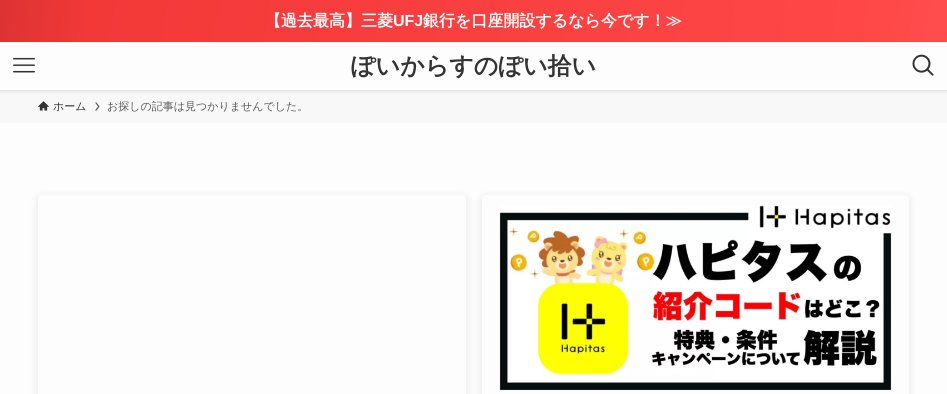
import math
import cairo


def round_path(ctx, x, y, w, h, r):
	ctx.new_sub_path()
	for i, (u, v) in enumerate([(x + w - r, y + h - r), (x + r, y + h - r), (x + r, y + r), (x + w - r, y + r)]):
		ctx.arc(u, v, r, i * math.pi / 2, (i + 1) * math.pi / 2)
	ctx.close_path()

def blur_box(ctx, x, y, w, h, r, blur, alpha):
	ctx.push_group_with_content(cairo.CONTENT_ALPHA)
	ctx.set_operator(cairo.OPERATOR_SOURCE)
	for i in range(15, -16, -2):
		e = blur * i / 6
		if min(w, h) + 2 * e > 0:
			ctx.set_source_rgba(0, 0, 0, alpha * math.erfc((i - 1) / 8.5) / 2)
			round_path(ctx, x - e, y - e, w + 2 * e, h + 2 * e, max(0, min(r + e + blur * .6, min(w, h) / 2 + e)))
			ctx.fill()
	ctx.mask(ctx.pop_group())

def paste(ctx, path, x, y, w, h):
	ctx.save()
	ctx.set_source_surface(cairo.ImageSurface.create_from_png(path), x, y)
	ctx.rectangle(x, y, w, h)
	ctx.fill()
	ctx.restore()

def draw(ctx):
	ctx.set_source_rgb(0.992, 0.992, 0.992)
	ctx.paint()
	gradient = cairo.LinearGradient(11, -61, 936, 103)
	gradient.add_color_stop_rgba(0, 0.867, 0.2, 0.2, 1)
	gradient.add_color_stop_rgba(0.1, 0.953, 0.22, 0.22, 1)
	gradient.add_color_stop_rgba(0.9, 1, 0.278, 0.278, 1)
	gradient.add_color_stop_rgba(1, 1, 0.302, 0.302, 1)
	ctx.set_source(gradient)
	ctx.rectangle(0, 0, 947, 42)
	ctx.fill()
	ctx.select_font_face('WenQuanYi Zen Hei', cairo.FONT_SLANT_NORMAL, cairo.FONT_WEIGHT_BOLD)
	ctx.set_font_size(16)
	ctx.set_source_rgb(1, 1, 1)
	ctx.move_to(265, 26)
	ctx.show_text('【過去最高】三菱')
	ctx.select_font_face('Liberation Sans', cairo.FONT_SLANT_NORMAL, cairo.FONT_WEIGHT_BOLD)
	ctx.move_to(393, 26)
	ctx.show_text('UFJ')
	ctx.select_font_face('WenQuanYi Zen Hei', cairo.FONT_SLANT_NORMAL, cairo.FONT_WEIGHT_BOLD)
	ctx.move_to(423, 26)
	ctx.show_text('銀行を口座開設するなら今です！≫')
	ctx.set_source_rgb(0.969, 0.969, 0.969)
	ctx.rectangle(0, 90, 947, 33)
	ctx.fill()
	ctx.save()
	ctx.set_fill_rule(cairo.FILL_RULE_EVEN_ODD)
	ctx.new_path()
	ctx.move_to(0, 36)
	ctx.line_to(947, 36)
	ctx.line_to(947, 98)
	ctx.line_to(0, 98)
	ctx.close_path()
	ctx.move_to(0, 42)
	ctx.line_to(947, 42)
	ctx.line_to(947, 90)
	ctx.line_to(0, 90)
	ctx.close_path()
	ctx.clip()
	ctx.set_source_rgb(0, 0, 0)
	blur_box(ctx, 0, 43, 947, 48, 0, 2, 0.12)
	ctx.restore()
	paste(ctx, 'media/1.png', 13, 57, 22, 16)
	ctx.set_font_size(24)
	ctx.set_source_rgb(0.2, 0.2, 0.2)
	ctx.move_to(351, 74)
	ctx.show_text('ぽいからすのぽい拾い')
	paste(ctx, 'media/2.png', 912, 54, 22, 22)
	paste(ctx, 'media/3.png', 38, 101, 11, 10)
	ctx.select_font_face('WenQuanYi Zen Hei Medium')
	ctx.set_font_size(11)
	ctx.move_to(53, 110)
	ctx.show_text('ホーム')
	ctx.set_source_rgb(0.353, 0.353, 0.353)
	ctx.new_path()
	ctx.move_to(96.5, 102.5)
	ctx.line_to(95, 102.5)
	ctx.line_to(98, 106.5)
	ctx.line_to(95, 110.5)
	ctx.line_to(96.5, 110.5)
	ctx.line_to(99.5, 106.5)
	ctx.close_path()
	ctx.fill()
	ctx.move_to(107, 110)
	ctx.show_text('お探しの記事は見つかりませんでした。')
	ctx.save()
	ctx.set_fill_rule(cairo.FILL_RULE_EVEN_ODD)
	ctx.new_path()
	ctx.move_to(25, 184)
	ctx.line_to(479, 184)
	ctx.line_to(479, 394)
	ctx.line_to(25, 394)
	ctx.close_path()
	ctx.move_to(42, 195)
	ctx.line_to(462, 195)
	ctx.curve_to(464, 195, 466, 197, 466, 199)
	ctx.line_to(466, 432)
	ctx.curve_to(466, 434, 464, 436, 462, 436)
	ctx.line_to(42, 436)
	ctx.curve_to(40, 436, 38, 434, 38, 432)
	ctx.line_to(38, 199)
	ctx.curve_to(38, 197, 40, 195, 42, 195)
	ctx.close_path()
	ctx.clip()
	ctx.set_source_rgb(0, 0, 0)
	blur_box(ctx, 38, 197, 428, 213, 4, 4, 0.1)
	ctx.restore()
	ctx.save()
	ctx.set_fill_rule(cairo.FILL_RULE_EVEN_ODD)
	ctx.new_path()
	ctx.move_to(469, 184)
	ctx.line_to(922, 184)
	ctx.line_to(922, 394)
	ctx.line_to(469, 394)
	ctx.close_path()
	ctx.move_to(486, 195)
	ctx.line_to(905, 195)
	ctx.curve_to(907, 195, 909, 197, 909, 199)
	ctx.line_to(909, 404)
	ctx.curve_to(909, 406, 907, 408, 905, 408)
	ctx.line_to(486, 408)
	ctx.curve_to(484, 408, 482, 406, 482, 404)
	ctx.line_to(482, 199)
	ctx.curve_to(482, 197, 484, 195, 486, 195)
	ctx.close_path()
	ctx.clip()
	ctx.set_source_rgb(0, 0, 0)
	blur_box(ctx, 482, 197, 427, 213, 4, 4, 0.1)
	ctx.restore()
	paste(ctx, 'media/4.png', 499, 205, 393, 186)


surface = cairo.ImageSurface(cairo.FORMAT_RGB24, 947, 394)
ctx = cairo.Context(surface)
options = cairo.FontOptions()
options.set_hint_metrics(cairo.HINT_METRICS_OFF)
options.set_hint_style(cairo.HINT_STYLE_NONE)
ctx.set_font_options(options)
ctx.set_miter_limit(4)
draw(ctx)
surface.write_to_png('image.png')
